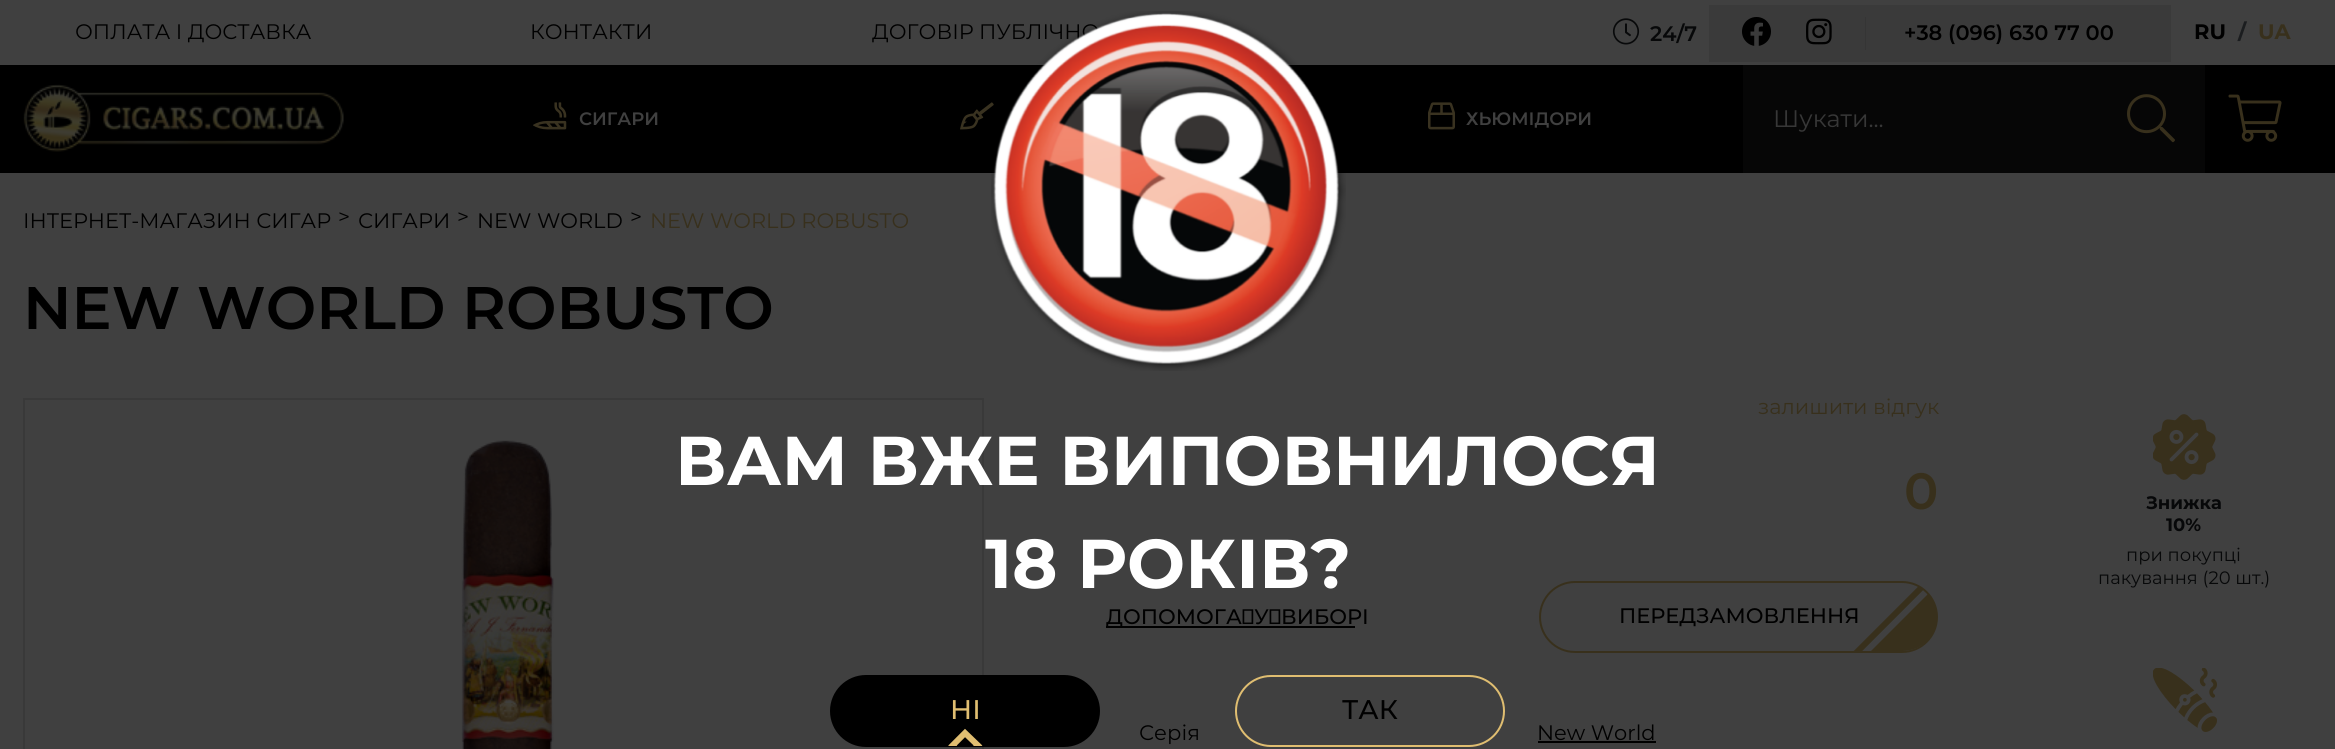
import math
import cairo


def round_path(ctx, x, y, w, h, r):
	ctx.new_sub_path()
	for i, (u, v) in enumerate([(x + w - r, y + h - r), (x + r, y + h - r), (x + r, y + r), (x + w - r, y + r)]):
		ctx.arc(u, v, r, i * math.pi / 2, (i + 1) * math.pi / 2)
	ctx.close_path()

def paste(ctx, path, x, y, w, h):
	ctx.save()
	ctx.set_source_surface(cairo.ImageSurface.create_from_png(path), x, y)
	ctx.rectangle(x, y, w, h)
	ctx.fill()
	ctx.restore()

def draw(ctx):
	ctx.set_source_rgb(0.251, 0.251, 0.251)
	ctx.paint()
	ctx.select_font_face('Montserrat')
	ctx.set_font_size(21)
	ctx.set_source_rgb(0, 0, 0)
	for x, y, s in [
		(75, 39, 'ОПЛАТА І ДОСТАВКА'),
		(530, 39, 'КОНТАКТИ'),
		(872, 39, 'ДОГОВІР ПУБЛІЧНО'),
	]:
		ctx.move_to(x, y)
		ctx.show_text(s)
	paste(ctx, 'media/1.png', 1612, 18, 28, 27)
	ctx.select_font_face('Montserrat SemiBold')
	ctx.set_source_rgb(0.031, 0.035, 0.039)
	ctx.move_to(1650, 41)
	ctx.show_text('24/7')
	ctx.set_source_rgb(0.227, 0.227, 0.227)
	ctx.rectangle(1709, 5, 462, 57)
	ctx.fill()
	paste(ctx, 'media/2.png', 1742, 17, 29, 29)
	paste(ctx, 'media/3.png', 1806, 18, 26, 27)
	ctx.set_source_rgb(0.208, 0.208, 0.208)
	ctx.rectangle(1865, 17, 1, 33)
	ctx.fill()
	ctx.select_font_face('Montserrat', cairo.FONT_SLANT_NORMAL, cairo.FONT_WEIGHT_BOLD)
	ctx.set_source_rgb(0, 0, 0)
	ctx.move_to(2194, 39)
	ctx.show_text('RU')
	ctx.set_source_rgb(0.106, 0.114, 0.122)
	ctx.move_to(2238, 39)
	ctx.show_text('/')
	ctx.set_source_rgb(0.22, 0.188, 0.11)
	ctx.move_to(2258, 39)
	ctx.show_text('UA')
	ctx.select_font_face('Montserrat SemiBold')
	ctx.set_source_rgb(0, 0, 0)
	ctx.move_to(1904, 40)
	ctx.show_text('+38 (096) 630 77 00')
	ctx.rectangle(0, 65, 2335, 108)
	ctx.fill()
	paste(ctx, 'media/4.png', 23, 84, 321, 68)
	paste(ctx, 'media/5.png', 533, 102, 34, 28)
	ctx.set_font_size(18)
	ctx.set_source_rgb(0.251, 0.251, 0.251)
	ctx.move_to(579, 125)
	ctx.show_text('СИГАРИ')
	paste(ctx, 'media/6.png', 960, 102, 34, 28)
	paste(ctx, 'media/7.png', 1428, 102, 27, 28)
	ctx.move_to(1466, 125)
	ctx.show_text('ХЬЮМІДОРИ')
	ctx.set_source_rgb(0.024, 0.024, 0.024)
	ctx.rectangle(1743, 65, 462, 108)
	ctx.fill()
	ctx.select_font_face('Montserrat')
	ctx.set_font_size(24)
	ctx.set_source_rgb(0.216, 0.216, 0.216)
	ctx.move_to(1773, 127)
	ctx.show_text('Шукати...')
	paste(ctx, 'media/8.png', 2127, 94, 48, 49)
	paste(ctx, 'media/9.png', 2228, 94, 54, 48)
	ctx.set_font_size(21)
	ctx.set_source_rgb(0, 0, 0)
	for x, y, s in [
		(23, 228, 'ІНТЕРНЕТ-МАГАЗИН СИГАР'),
		(338, 224, '>'),
		(358, 228, 'СИГАРИ'),
		(457, 224, '>'),
		(477, 228, 'NEW WORLD'),
		(630, 224, '>'),
	]:
		ctx.move_to(x, y)
		ctx.show_text(s)
	ctx.set_source_rgb(0.22, 0.188, 0.11)
	ctx.move_to(650, 228)
	ctx.show_text('NEW WORLD ROBUSTO')
	ctx.select_font_face('Montserrat SemiBold')
	ctx.set_font_size(60)
	ctx.set_source_rgb(0, 0, 0)
	ctx.move_to(23, 329)
	ctx.show_text('NEW WORLD ROBUSTO')
	ctx.rectangle(24, 399, 959, 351)
	ctx.set_source_rgb(0.224, 0.224, 0.224)
	ctx.stroke()
	paste(ctx, 'media/10.png', 461, 440, 93, 309)
	ctx.select_font_face('Montserrat')
	ctx.set_font_size(21)
	ctx.set_source_rgb(0.22, 0.188, 0.11)
	ctx.move_to(1758, 414)
	ctx.show_text('залишити відгук')
	ctx.select_font_face('Montserrat SemiBold')
	ctx.set_font_size(51)
	ctx.move_to(1904, 509)
	ctx.show_text('0')
	ctx.set_source_rgb(0, 0, 0)
	ctx.rectangle(1106, 626, 249, 2)
	ctx.fill()
	ctx.select_font_face('Montserrat Medium')
	ctx.set_font_size(21)
	ctx.move_to(1106, 624)
	ctx.show_text('ДОПОМОГА У ВИБОРІ')
	round_path(ctx, 1540, 582, 397, 70, 35)
	ctx.set_source_rgb(0.22, 0.188, 0.11)
	ctx.stroke()
	ctx.new_path()
	ctx.move_to(1871, 651)
	ctx.line_to(1928, 594)
	ctx.curve_to(1934, 600, 1937, 608, 1937, 616)
	ctx.curve_to(1937, 636, 1922, 651, 1902, 651)
	ctx.close_path()
	ctx.fill()
	ctx.save()
	round_path(ctx, 1541, 582, 396, 69, 34.5)
	ctx.clip()
	ctx.new_path()
	ctx.move_to(1964, 545)
	ctx.line_to(2295, 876)
	ctx.line_to(1964, 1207)
	ctx.line_to(1633, 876)
	ctx.close_path()
	ctx.set_line_width(6)
	ctx.stroke()
	ctx.restore()
	ctx.set_source_rgb(0, 0, 0)
	ctx.move_to(1619, 623)
	ctx.show_text('ПЕРЕДЗАМОВЛЕННЯ')
	ctx.select_font_face('Montserrat')
	ctx.move_to(1139, 740)
	ctx.show_text('Серія')
	ctx.move_to(1537, 740)
	ctx.show_text('New World')
	ctx.rectangle(1538, 741, 118, 2)
	ctx.fill()
	paste(ctx, 'media/11.png', 2153, 414, 63, 66)
	ctx.select_font_face('Montserrat', cairo.FONT_SLANT_NORMAL, cairo.FONT_WEIGHT_BOLD)
	ctx.set_font_size(18)
	ctx.set_source_rgb(0.031, 0.035, 0.039)
	ctx.move_to(2146, 509)
	ctx.show_text('Знижка')
	ctx.move_to(2166, 531)
	ctx.show_text('10%')
	ctx.select_font_face('Montserrat')
	ctx.move_to(2126, 561)
	ctx.show_text('при покупці')
	ctx.move_to(2098, 584)
	ctx.show_text('пакування (20 шт.)')
	paste(ctx, 'media/12.png', 2153, 668, 64, 64)
	paste(ctx, 'media/13.png', 991, 11, 355, 360)
	ctx.select_font_face('Montserrat', cairo.FONT_SLANT_NORMAL, cairo.FONT_WEIGHT_BOLD)
	ctx.set_font_size(69)
	ctx.set_source_rgb(1, 1, 1)
	ctx.move_to(675, 485)
	ctx.show_text('ВАМ ВЖЕ ВИПОВНИЛОСЯ')
	ctx.move_to(985, 588)
	ctx.show_text('18 РОКІВ?')
	ctx.set_source_rgb(0, 0, 0)
	round_path(ctx, 831, 676, 268, 70, 35)
	ctx.fill_preserve()
	ctx.stroke()
	ctx.select_font_face('Montserrat Medium')
	ctx.set_font_size(27)
	ctx.set_source_rgb(0.878, 0.745, 0.443)
	ctx.move_to(950, 719)
	ctx.show_text('НІ')
	ctx.save()
	round_path(ctx, 831, 677, 267, 69, 34.5)
	ctx.clip()
	ctx.new_path()
	ctx.move_to(965, 733)
	ctx.line_to(978, 745.5)
	ctx.line_to(965, 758)
	ctx.line_to(952.5, 745.5)
	ctx.close_path()
	ctx.set_line_width(6)
	ctx.stroke()
	ctx.restore()
	round_path(ctx, 1236, 676, 268, 70, 35)
	ctx.stroke()
	ctx.set_source_rgb(0, 0, 0)
	ctx.move_to(1342, 719)
	ctx.show_text('ТАК')


surface = cairo.ImageSurface(cairo.FORMAT_RGB24, 2335, 749)
ctx = cairo.Context(surface)
options = cairo.FontOptions()
options.set_hint_metrics(cairo.HINT_METRICS_OFF)
options.set_hint_style(cairo.HINT_STYLE_NONE)
ctx.set_font_options(options)
ctx.set_miter_limit(4)
draw(ctx)
surface.write_to_png('image.png')
